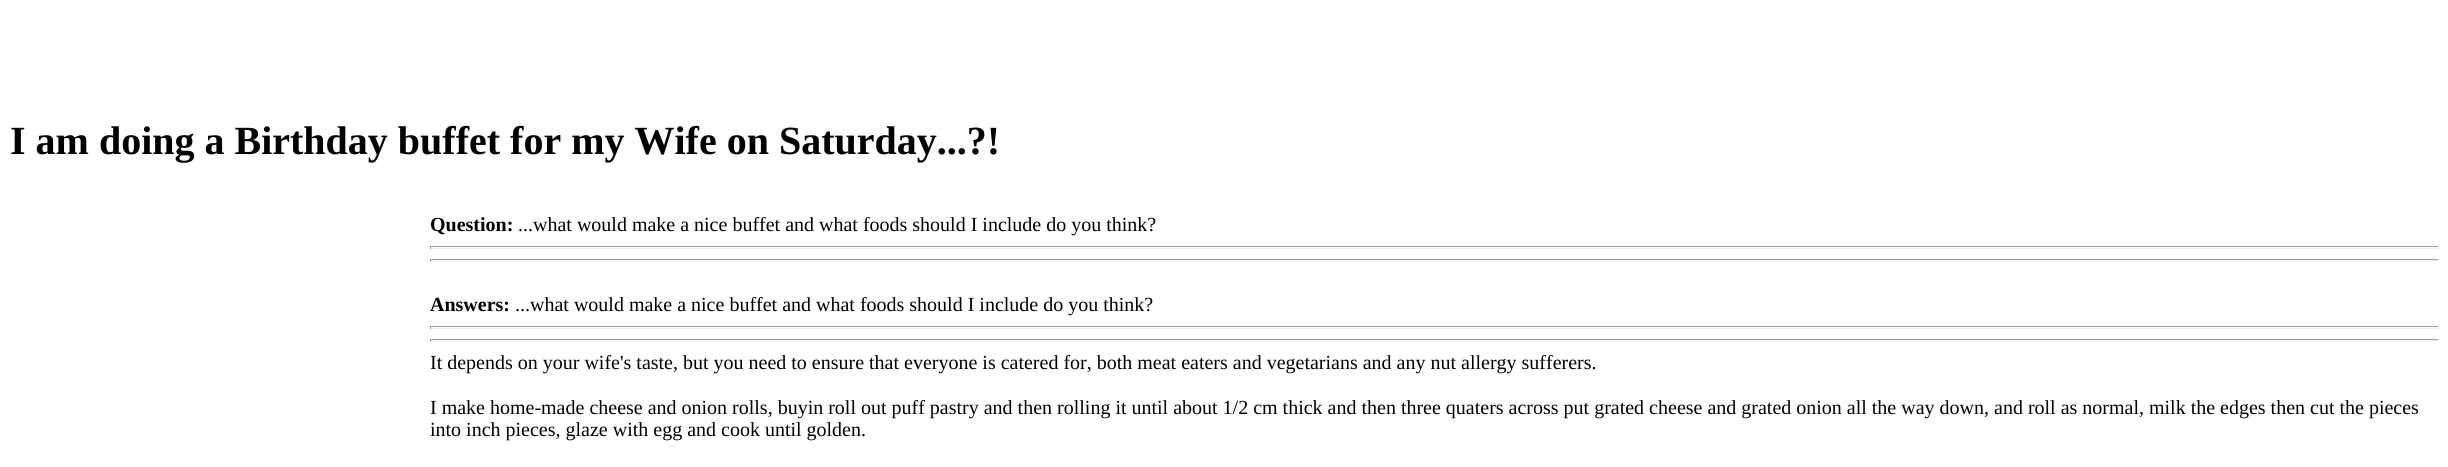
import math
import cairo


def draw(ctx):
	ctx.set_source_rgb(1, 1, 1)
	ctx.paint()
	ctx.select_font_face('Liberation Serif', cairo.FONT_SLANT_NORMAL, cairo.FONT_WEIGHT_BOLD)
	ctx.set_font_size(40)
	ctx.set_source_rgb(0, 0, 0)
	ctx.move_to(10, 154)
	ctx.show_text('I am doing a Birthday buffet for my Wife on Saturday...?!')
	ctx.set_font_size(20)
	ctx.move_to(430, 231)
	ctx.show_text('Question:')
	ctx.select_font_face('Liberation Serif')
	ctx.move_to(518, 231)
	ctx.show_text('...what would make a nice buffet and what foods should I include do you think?')
	ctx.set_source_rgb(0.624, 0.624, 0.624)
	ctx.rectangle(430, 246, 2009, 1)
	ctx.fill()
	ctx.set_source_rgb(0.933, 0.933, 0.933)
	ctx.rectangle(2438, 246, 1, 3)
	ctx.rectangle(430, 248, 2009, 1)
	ctx.fill()
	ctx.set_source_rgb(0.624, 0.624, 0.624)
	ctx.rectangle(430, 246, 1, 3)
	ctx.rectangle(430, 259, 2009, 1)
	ctx.fill()
	ctx.set_source_rgb(0.933, 0.933, 0.933)
	ctx.rectangle(2438, 259, 1, 3)
	ctx.rectangle(430, 260, 2009, 1)
	ctx.fill()
	ctx.set_source_rgb(0.624, 0.624, 0.624)
	ctx.rectangle(430, 259, 1, 3)
	ctx.fill()
	ctx.select_font_face('Liberation Serif', cairo.FONT_SLANT_NORMAL, cairo.FONT_WEIGHT_BOLD)
	ctx.set_source_rgb(0, 0, 0)
	ctx.move_to(430, 311)
	ctx.show_text('Answers:')
	ctx.select_font_face('Liberation Serif')
	ctx.move_to(515, 311)
	ctx.show_text('...what would make a nice buffet and what foods should I include do you think?')
	ctx.set_source_rgb(0.624, 0.624, 0.624)
	ctx.rectangle(430, 326, 2009, 1)
	ctx.fill()
	ctx.set_source_rgb(0.933, 0.933, 0.933)
	ctx.rectangle(2438, 326, 1, 3)
	ctx.rectangle(430, 328, 2009, 1)
	ctx.fill()
	ctx.set_source_rgb(0.624, 0.624, 0.624)
	ctx.rectangle(430, 326, 1, 3)
	ctx.rectangle(430, 339, 2009, 1)
	ctx.fill()
	ctx.set_source_rgb(0.933, 0.933, 0.933)
	ctx.rectangle(2438, 339, 1, 3)
	ctx.rectangle(430, 340, 2009, 1)
	ctx.fill()
	ctx.set_source_rgb(0.624, 0.624, 0.624)
	ctx.rectangle(430, 339, 1, 3)
	ctx.fill()
	ctx.set_source_rgb(0, 0, 0)
	for x, y, s in [
		(430, 369, 'It depends on your wife\'s taste, but you need to ensure that everyone is catered for, both meat eaters and vegetarians and any nut allergy sufferers.'),
		(430, 414, 'I make home-made cheese and onion rolls, buyin roll out puff pastry and then rolling it until about 1/2 cm thick and then three quaters across put grated cheese and grated onion all the way down, and roll as normal, milk the edges then cut the pieces'),
		(430, 436, 'into inch pieces, glaze with egg and cook until golden.'),
	]:
		ctx.move_to(x, y)
		ctx.show_text(s)


surface = cairo.ImageSurface(cairo.FORMAT_RGB24, 2448, 467)
ctx = cairo.Context(surface)
options = cairo.FontOptions()
options.set_hint_metrics(cairo.HINT_METRICS_OFF)
options.set_hint_style(cairo.HINT_STYLE_NONE)
ctx.set_font_options(options)
ctx.set_miter_limit(4)
draw(ctx)
surface.write_to_png('image.png')
